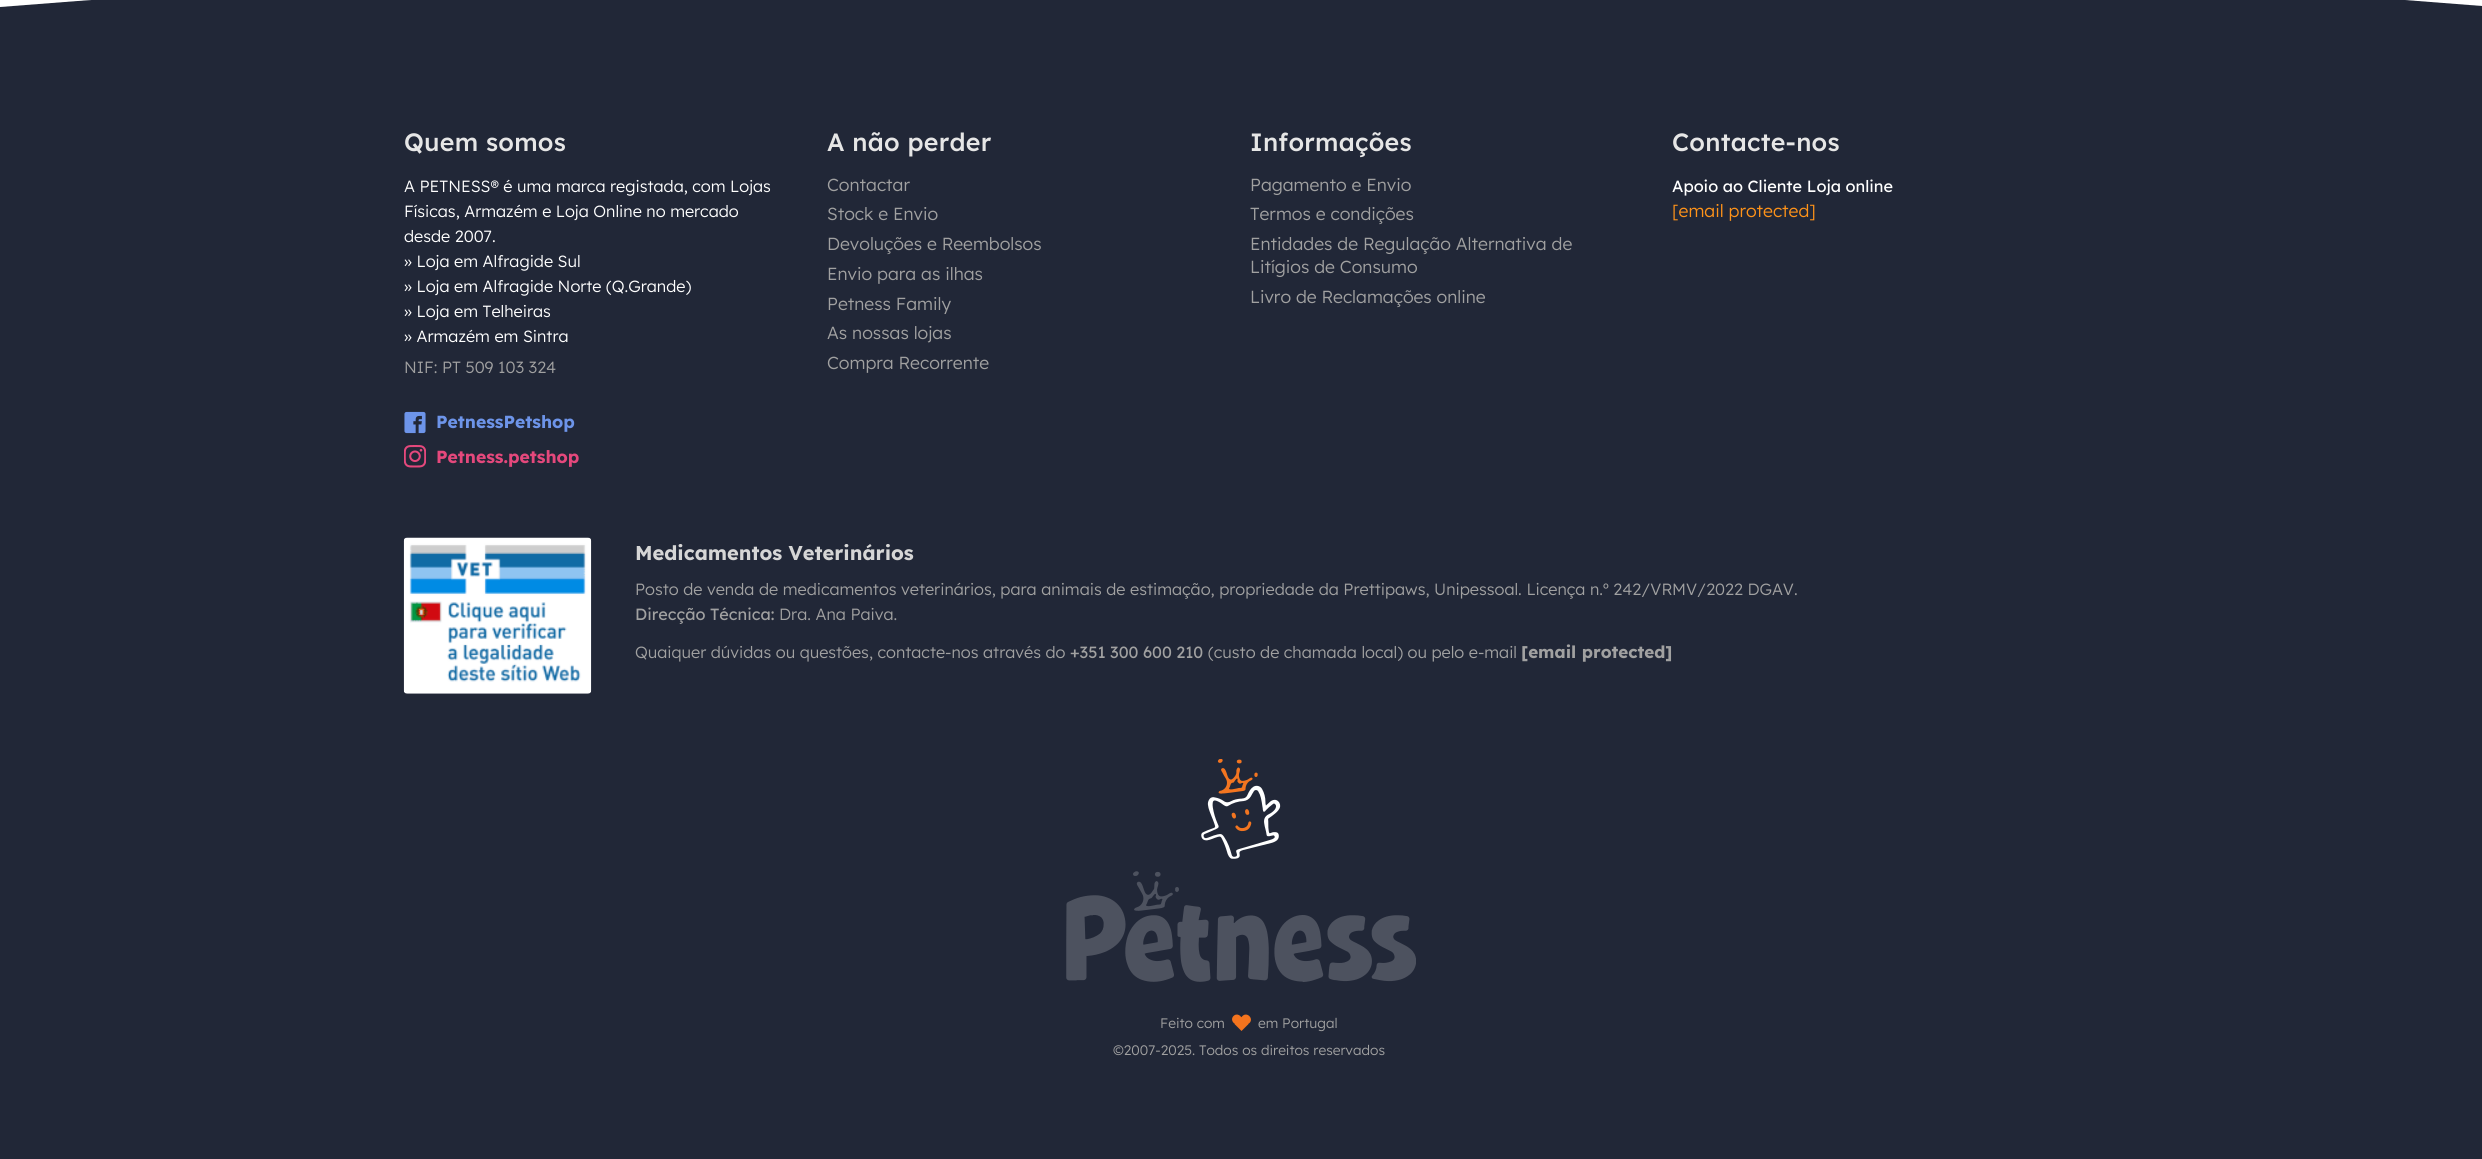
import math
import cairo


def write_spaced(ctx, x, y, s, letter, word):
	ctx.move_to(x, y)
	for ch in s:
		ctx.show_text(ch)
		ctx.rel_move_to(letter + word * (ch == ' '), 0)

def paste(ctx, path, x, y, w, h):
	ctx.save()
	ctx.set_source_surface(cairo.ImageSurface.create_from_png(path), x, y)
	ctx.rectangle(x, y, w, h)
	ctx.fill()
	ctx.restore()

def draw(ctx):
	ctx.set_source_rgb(1, 1, 1)
	ctx.paint()
	ctx.set_source_rgb(0.129, 0.153, 0.216)
	ctx.set_fill_rule(cairo.FILL_RULE_EVEN_ODD)
	ctx.new_path()
	ctx.move_to(2482, 6)
	ctx.line_to(2482, 29)
	ctx.line_to(0, 29)
	ctx.line_to(0, 7)
	ctx.curve_to(826, -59, 1657, -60, 2482, 6)
	ctx.close_path()
	ctx.fill()
	ctx.rectangle(0, 29, 2482, 1130)
	ctx.fill()
	ctx.select_font_face('Lexend Deca Medium')
	ctx.set_font_size(25)
	ctx.set_source_rgb(0.902, 0.902, 0.902)
	write_spaced(ctx, 404, 151, 'Quem somos', 0.25, 0)
	ctx.select_font_face('Lexend Deca Light')
	ctx.set_font_size(16.25)
	ctx.set_source_rgb(1, 1, 1)
	for x, y, s in [
		(404, 192, 'A PETNESS® é uma marca registada, com Lojas'),
		(404, 217, 'Físicas, Armazém e Loja Online no mercado'),
		(404, 242, 'desde 2007.'),
		(404, 267, '» Loja em Alfragide Sul'),
		(404, 292, '» Loja em Alfragide Norte (Q.Grande)'),
		(404, 317, '» Loja em Telheiras'),
		(404, 342, '» Armazém em Sintra'),
	]:
		ctx.move_to(x, y)
		ctx.show_text(s)
	ctx.set_source_rgb(0.631, 0.631, 0.631)
	ctx.move_to(404, 373)
	ctx.show_text('NIF: PT 509 103 324')
	paste(ctx, 'media/1.png', 404, 411, 22, 23)
	ctx.select_font_face('Lexend Deca', cairo.FONT_SLANT_NORMAL, cairo.FONT_WEIGHT_BOLD)
	ctx.set_font_size(17.5)
	ctx.set_source_rgb(0.427, 0.58, 0.914)
	ctx.move_to(436, 428)
	ctx.show_text('PetnessPetshop')
	paste(ctx, 'media/2.png', 404, 445, 22, 23)
	ctx.set_source_rgb(0.898, 0.282, 0.486)
	ctx.move_to(436, 463)
	ctx.show_text('Petness.petshop')
	ctx.select_font_face('Lexend Deca Medium')
	ctx.set_font_size(25)
	ctx.set_source_rgb(0.902, 0.902, 0.902)
	write_spaced(ctx, 827, 151, 'A não perder', 0.25, 0)
	ctx.select_font_face('Lexend Deca Light')
	ctx.set_font_size(17.5)
	ctx.set_source_rgb(0.631, 0.631, 0.631)
	for x, y, s in [
		(827, 191, 'Contactar'),
		(827, 220, 'Stock e Envio'),
		(827, 250, 'Devoluções e Reembolsos'),
		(827, 280, 'Envio para as ilhas'),
		(827, 310, 'Petness Family'),
		(827, 339, 'As nossas lojas'),
		(827, 369, 'Compra Recorrente'),
	]:
		ctx.move_to(x, y)
		ctx.show_text(s)
	ctx.select_font_face('Lexend Deca Medium')
	ctx.set_font_size(25)
	ctx.set_source_rgb(0.902, 0.902, 0.902)
	write_spaced(ctx, 1250, 151, 'Informações', 0.25, 0)
	ctx.select_font_face('Lexend Deca Light')
	ctx.set_font_size(17.5)
	ctx.set_source_rgb(0.631, 0.631, 0.631)
	for x, y, s in [
		(1250, 191, 'Pagamento e Envio'),
		(1250, 220, 'Termos e condições'),
		(1250, 250, 'Entidades de Regulação Alternativa de'),
		(1250, 273, 'Litígios de Consumo'),
		(1250, 303, 'Livro de Reclamações online'),
	]:
		ctx.move_to(x, y)
		ctx.show_text(s)
	ctx.select_font_face('Lexend Deca Medium')
	ctx.set_font_size(25)
	ctx.set_source_rgb(0.902, 0.902, 0.902)
	write_spaced(ctx, 1672, 151, 'Contacte-nos', 0.25, 0)
	ctx.select_font_face('Lexend Deca')
	ctx.set_font_size(16.25)
	ctx.set_source_rgb(1, 1, 1)
	ctx.move_to(1672, 192)
	ctx.show_text('Apoio ao Cliente Loja online')
	ctx.select_font_face('Lexend Deca Light')
	ctx.set_font_size(17.5)
	ctx.set_source_rgb(1, 0.576, 0.098)
	ctx.move_to(1672, 217)
	ctx.show_text('[email protected]')
	paste(ctx, 'media/3.png', 403, 537, 189, 157)
	ctx.select_font_face('Lexend Deca', cairo.FONT_SLANT_NORMAL, cairo.FONT_WEIGHT_BOLD)
	ctx.set_font_size(20)
	ctx.set_source_rgb(0.839, 0.839, 0.839)
	ctx.move_to(635, 560)
	ctx.show_text('Medicamentos Veterinários')
	ctx.select_font_face('Lexend Deca Light')
	ctx.set_font_size(16.25)
	ctx.set_source_rgb(0.631, 0.631, 0.631)
	ctx.move_to(635, 595)
	ctx.show_text('Posto de venda de medicamentos veterinários, para animais de estimação, propriedade da Prettipaws, Unipessoal. Licença n.º 242/VRMV/2022 DGAV.')
	ctx.select_font_face('Lexend Deca')
	ctx.move_to(635, 620)
	ctx.show_text('Direcção Técnica:')
	ctx.select_font_face('Lexend Deca Light')
	ctx.move_to(779, 620)
	ctx.show_text('Dra. Ana Paiva.')
	ctx.move_to(635, 658)
	ctx.show_text('Quaiquer dúvidas ou questões, contacte-nos através do')
	ctx.select_font_face('Lexend Deca')
	ctx.move_to(1070, 658)
	ctx.show_text('+351 300 600 210')
	ctx.select_font_face('Lexend Deca Light')
	ctx.move_to(1208, 658)
	ctx.show_text('(custo de chamada local) ou pelo e-mail')
	ctx.select_font_face('Lexend Deca', cairo.FONT_SLANT_NORMAL, cairo.FONT_WEIGHT_BOLD)
	ctx.set_font_size(17)
	ctx.move_to(1521, 658)
	ctx.show_text('[email protected]')
	paste(ctx, 'media/4.png', 1201, 759, 80, 100)
	paste(ctx, 'media/5.png', 1066, 871, 350, 111)
	ctx.select_font_face('Lexend Deca Light')
	ctx.set_font_size(13.75)
	ctx.move_to(1160, 1028)
	ctx.show_text('Feito com')
	ctx.set_source_rgb(0.957, 0.455, 0.118)
	ctx.set_fill_rule(cairo.FILL_RULE_WINDING)
	ctx.new_path()
	ctx.move_to(1234.5, 1024)
	ctx.line_to(1241.5, 1017)
	ctx.line_to(1248.5, 1024)
	ctx.line_to(1241.5, 1031)
	ctx.close_path()
	ctx.fill()
	ctx.new_path()
	ctx.move_to(1242.5, 1016)
	ctx.curve_to(1247, 1011.5, 1254, 1018.5, 1249.5, 1023)
	ctx.curve_to(1244.5, 1027.5, 1237.5, 1020.5, 1242.5, 1016)
	ctx.close_path()
	ctx.fill()
	ctx.new_path()
	ctx.move_to(1233.5, 1016)
	ctx.curve_to(1238, 1011.5, 1245, 1018.5, 1240.5, 1023)
	ctx.curve_to(1236, 1027.5, 1229, 1020.5, 1233.5, 1016)
	ctx.close_path()
	ctx.fill()
	ctx.set_source_rgb(0.631, 0.631, 0.631)
	ctx.move_to(1258, 1028)
	ctx.show_text('em Portugal')
	ctx.move_to(1113, 1055)
	ctx.show_text('©2007-2025. Todos os direitos reservados')


surface = cairo.ImageSurface(cairo.FORMAT_RGB24, 2482, 1159)
ctx = cairo.Context(surface)
options = cairo.FontOptions()
options.set_hint_metrics(cairo.HINT_METRICS_OFF)
options.set_hint_style(cairo.HINT_STYLE_NONE)
ctx.set_font_options(options)
ctx.set_miter_limit(4)
draw(ctx)
surface.write_to_png('image.png')
